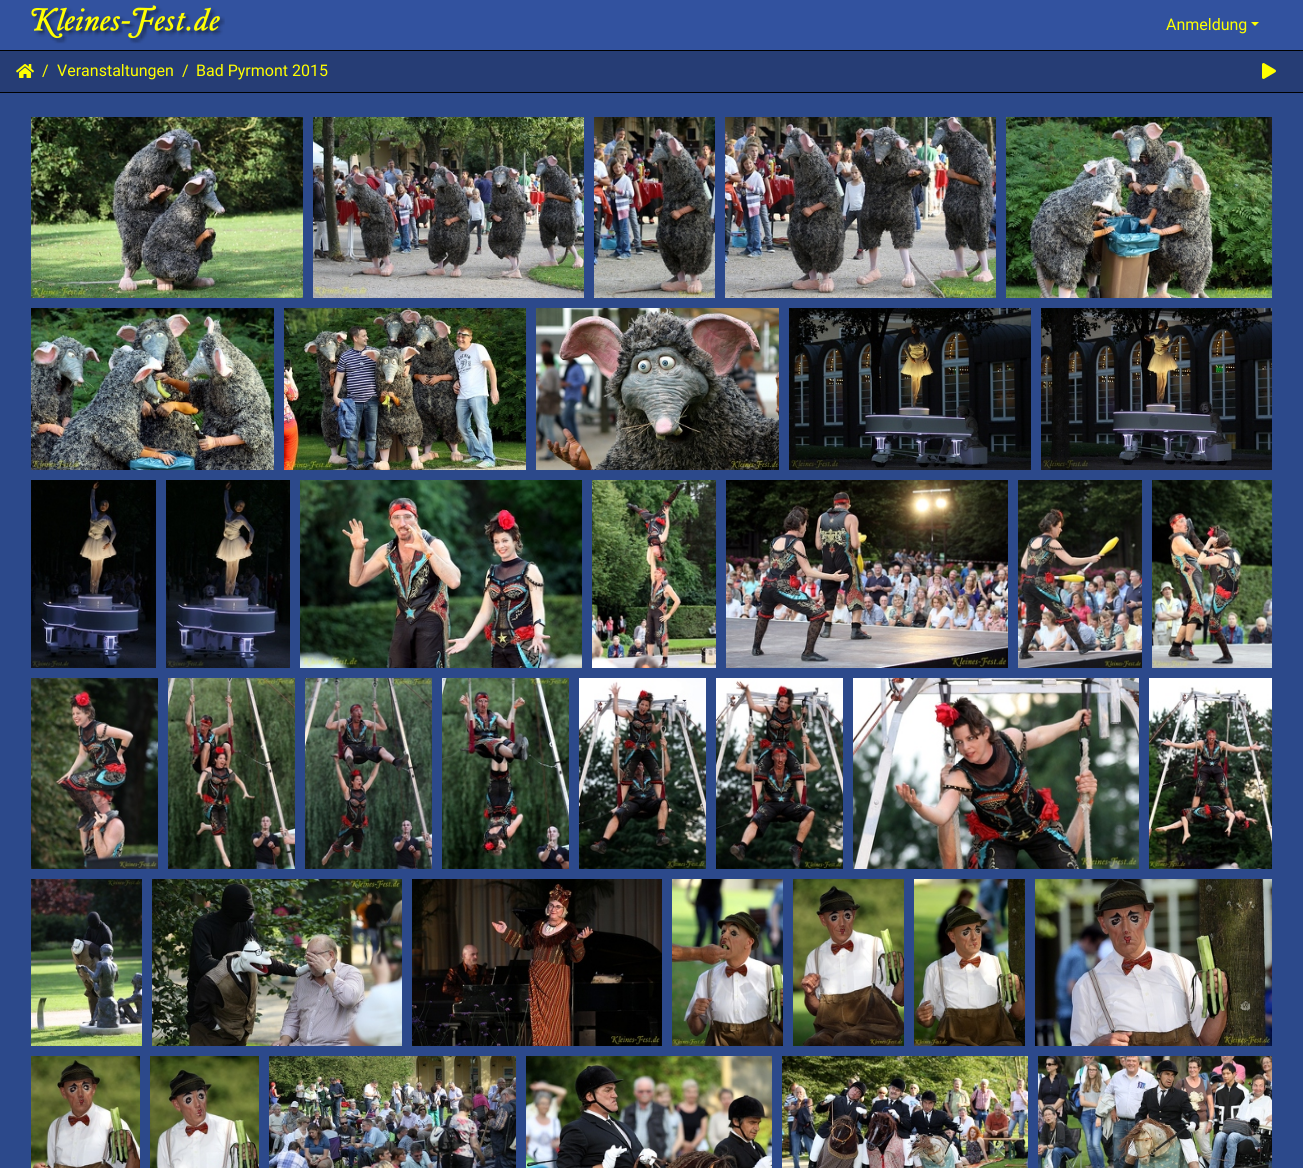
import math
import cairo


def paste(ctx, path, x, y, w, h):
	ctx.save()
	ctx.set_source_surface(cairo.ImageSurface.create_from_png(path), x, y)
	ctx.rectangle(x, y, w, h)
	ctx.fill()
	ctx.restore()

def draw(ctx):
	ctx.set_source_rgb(0.173, 0.286, 0.545)
	ctx.paint()
	ctx.set_source_rgb(0.196, 0.322, 0.624)
	ctx.rectangle(0, 0, 1303, 50)
	ctx.fill()
	paste(ctx, 'media/1.png', 31, 5, 194, 39)
	ctx.select_font_face('Roboto')
	ctx.set_font_size(16)
	ctx.set_source_rgb(1, 1, 0)
	ctx.move_to(1166, 30)
	ctx.show_text('Anmeldung')
	ctx.new_path()
	ctx.move_to(1251, 22)
	ctx.line_to(1259, 22)
	ctx.line_to(1255, 26)
	ctx.close_path()
	ctx.fill()
	ctx.set_source_rgb(0.149, 0.239, 0.459)
	ctx.rectangle(0, 51, 1303, 41)
	ctx.fill()
	ctx.set_source_rgb(0, 0, 0)
	ctx.rectangle(0, 50, 1303, 1)
	ctx.rectangle(0, 92, 1303, 1)
	ctx.fill()
	paste(ctx, 'media/2.png', 16, 64, 18, 14)
	ctx.set_source_rgb(1, 1, 0)
	for x, y, s in [
		(42, 76, '/'),
		(57, 76, 'Veranstaltungen'),
		(182, 76, '/'),
		(196, 76, 'Bad Pyrmont 2015'),
	]:
		ctx.move_to(x, y)
		ctx.show_text(s)
	paste(ctx, 'media/3.png', 1262, 63, 14, 16)
	paste(ctx, 'media/4.png', 31, 117, 272, 181)
	paste(ctx, 'media/5.png', 313, 117, 271, 181)
	paste(ctx, 'media/6.png', 594, 117, 121, 181)
	paste(ctx, 'media/7.png', 725, 117, 271, 181)
	paste(ctx, 'media/8.png', 1006, 117, 266, 181)
	paste(ctx, 'media/9.png', 31, 308, 243, 162)
	paste(ctx, 'media/10.png', 284, 308, 242, 162)
	paste(ctx, 'media/11.png', 536, 308, 243, 162)
	paste(ctx, 'media/12.png', 789, 308, 242, 162)
	paste(ctx, 'media/13.png', 1041, 308, 231, 162)
	paste(ctx, 'media/14.png', 31, 480, 125, 188)
	paste(ctx, 'media/15.png', 166, 480, 124, 188)
	paste(ctx, 'media/16.png', 300, 480, 282, 188)
	paste(ctx, 'media/17.png', 592, 480, 124, 188)
	paste(ctx, 'media/18.png', 726, 480, 282, 188)
	paste(ctx, 'media/19.png', 1018, 480, 124, 188)
	paste(ctx, 'media/20.png', 1152, 480, 120, 188)
	paste(ctx, 'media/21.png', 31, 678, 127, 191)
	paste(ctx, 'media/22.png', 168, 678, 127, 191)
	paste(ctx, 'media/23.png', 305, 678, 127, 191)
	paste(ctx, 'media/24.png', 442, 678, 127, 191)
	paste(ctx, 'media/25.png', 579, 678, 127, 191)
	paste(ctx, 'media/26.png', 716, 678, 127, 191)
	paste(ctx, 'media/27.png', 853, 678, 286, 191)
	paste(ctx, 'media/28.png', 1149, 678, 123, 191)
	paste(ctx, 'media/29.png', 31, 879, 111, 167)
	paste(ctx, 'media/30.png', 152, 879, 250, 167)
	paste(ctx, 'media/31.png', 412, 879, 250, 167)
	paste(ctx, 'media/32.png', 672, 879, 111, 167)
	paste(ctx, 'media/33.png', 793, 879, 111, 167)
	paste(ctx, 'media/34.png', 914, 879, 111, 167)
	paste(ctx, 'media/35.png', 1035, 879, 237, 167)
	paste(ctx, 'media/36.png', 31, 1056, 109, 112)
	paste(ctx, 'media/37.png', 150, 1056, 109, 112)
	paste(ctx, 'media/38.png', 269, 1056, 247, 112)
	paste(ctx, 'media/39.png', 526, 1056, 246, 112)
	paste(ctx, 'media/40.png', 782, 1056, 246, 112)
	paste(ctx, 'media/41.png', 1038, 1056, 234, 112)


surface = cairo.ImageSurface(cairo.FORMAT_RGB24, 1303, 1168)
ctx = cairo.Context(surface)
options = cairo.FontOptions()
options.set_hint_metrics(cairo.HINT_METRICS_OFF)
options.set_hint_style(cairo.HINT_STYLE_NONE)
ctx.set_font_options(options)
ctx.set_miter_limit(4)
draw(ctx)
surface.write_to_png('image.png')
